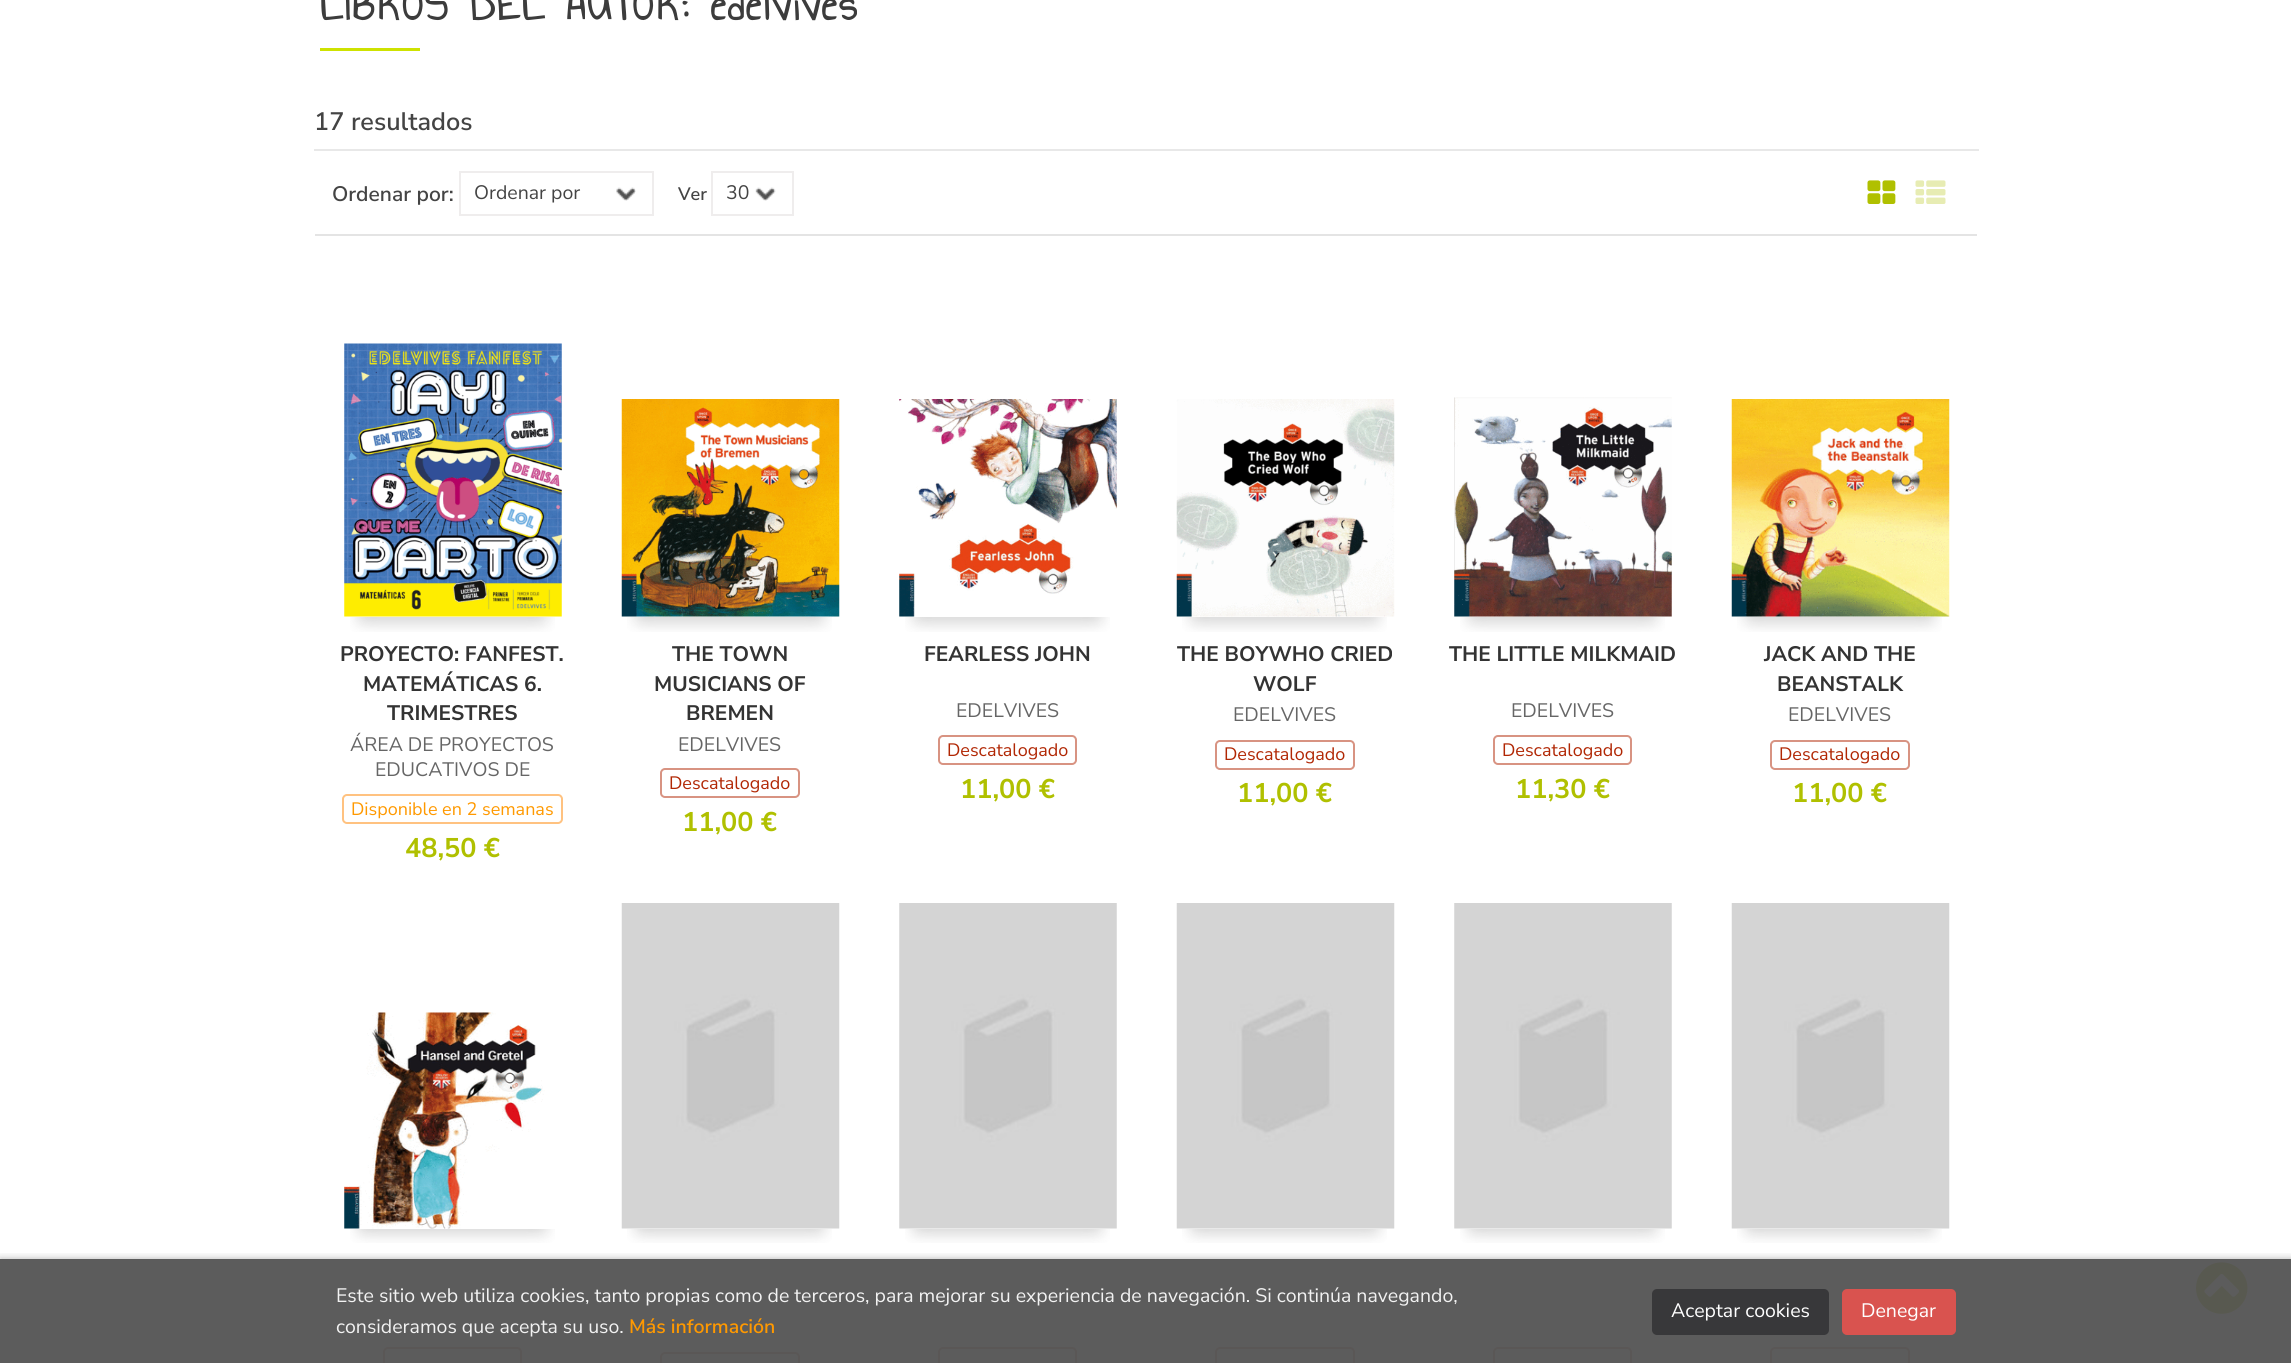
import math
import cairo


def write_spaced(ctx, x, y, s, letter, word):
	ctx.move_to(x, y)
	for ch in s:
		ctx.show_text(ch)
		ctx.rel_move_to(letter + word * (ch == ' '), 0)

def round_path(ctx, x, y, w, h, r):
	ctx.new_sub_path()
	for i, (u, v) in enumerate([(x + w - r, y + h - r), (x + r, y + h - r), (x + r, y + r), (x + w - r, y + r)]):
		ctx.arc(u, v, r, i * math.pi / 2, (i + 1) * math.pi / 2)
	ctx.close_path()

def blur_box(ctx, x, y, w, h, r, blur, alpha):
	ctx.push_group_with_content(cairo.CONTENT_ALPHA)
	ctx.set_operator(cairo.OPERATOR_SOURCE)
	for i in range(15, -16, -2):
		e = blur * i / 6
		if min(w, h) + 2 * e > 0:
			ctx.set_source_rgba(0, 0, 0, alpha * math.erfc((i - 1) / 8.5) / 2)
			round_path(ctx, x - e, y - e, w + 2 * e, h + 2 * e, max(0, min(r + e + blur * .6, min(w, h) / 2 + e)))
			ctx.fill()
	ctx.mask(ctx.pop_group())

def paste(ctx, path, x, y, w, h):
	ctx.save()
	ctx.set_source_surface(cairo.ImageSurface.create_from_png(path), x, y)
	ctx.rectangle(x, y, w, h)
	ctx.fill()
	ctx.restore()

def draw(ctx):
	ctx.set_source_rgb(1, 1, 1)
	ctx.paint()
	ctx.select_font_face('Annie Use Your Telescope', cairo.FONT_SLANT_NORMAL, cairo.FONT_WEIGHT_BOLD)
	ctx.set_font_size(48)
	ctx.set_source_rgb(0.235, 0.235, 0.235)
	write_spaced(ctx, 320, 20, 'LIBROS DEL AUTOR: edelvives', 1.8, 0)
	ctx.set_source_rgb(0.808, 0.886, 0)
	ctx.rectangle(320, 48, 100, 3)
	ctx.fill()
	ctx.set_source_rgb(0.91, 0.91, 0.91)
	ctx.rectangle(314, 149, 1665, 2)
	ctx.fill()
	ctx.select_font_face('Nunito Sans SemiBold')
	ctx.set_font_size(25.25)
	ctx.set_source_rgb(0.267, 0.267, 0.267)
	ctx.move_to(314, 130)
	ctx.show_text('17 resultados')
	ctx.set_source_rgb(0.894, 0.894, 0.894)
	ctx.rectangle(315, 234, 1662, 2)
	ctx.fill()
	ctx.set_font_size(21)
	ctx.set_source_rgb(0.267, 0.267, 0.267)
	ctx.move_to(332, 201)
	ctx.show_text('Ordenar por:')
	paste(ctx, 'media/1.png', 616, 187, 20, 14)
	ctx.rectangle(460, 172, 193, 43)
	ctx.set_source_rgb(0.937, 0.929, 0.929)
	ctx.stroke()
	ctx.select_font_face('Nunito Sans')
	ctx.set_font_size(19.5)
	ctx.set_source_rgb(0.267, 0.267, 0.267)
	ctx.move_to(474, 199)
	ctx.show_text('Ordenar por')
	ctx.select_font_face('Nunito Sans SemiBold')
	ctx.set_font_size(18)
	ctx.move_to(678, 200)
	ctx.show_text('Ver')
	paste(ctx, 'media/2.png', 755, 187, 21, 14)
	ctx.rectangle(712, 172, 81, 43)
	ctx.set_source_rgb(0.937, 0.929, 0.929)
	ctx.stroke()
	ctx.select_font_face('Nunito Sans')
	ctx.set_font_size(19.5)
	ctx.set_source_rgb(0.267, 0.267, 0.267)
	ctx.move_to(726, 199)
	ctx.show_text('30')
	paste(ctx, 'media/3.png', 1867, 180, 29, 24)
	paste(ctx, 'media/4.png', 1915, 180, 31, 24)
	paste(ctx, 'media/5.png', 344, 343, 218, 274)
	paste(ctx, 'media/6.png', 350, 617, 205, 15)
	ctx.select_font_face('Nunito Sans', cairo.FONT_SLANT_NORMAL, cairo.FONT_WEIGHT_BOLD)
	ctx.set_font_size(21)
	ctx.set_source_rgb(0.2, 0.2, 0.2)
	for x, y, s in [
		(340, 661, 'PROYECTO: FANFEST.'),
		(363, 691, 'MATEMÁTICAS 6.'),
		(387, 720, 'TRIMESTRES'),
	]:
		ctx.move_to(x, y)
		ctx.show_text(s)
	ctx.select_font_face('Nunito Sans')
	ctx.set_font_size(19.5)
	ctx.set_source_rgb(0.4, 0.4, 0.4)
	ctx.move_to(350, 751)
	ctx.show_text('ÁREA DE PROYECTOS')
	ctx.move_to(375, 776)
	ctx.show_text('EDUCATIVOS DE')
	round_path(ctx, 343, 795, 219, 28, 4)
	ctx.set_source_rgb(1, 0.761, 0.502)
	ctx.stroke()
	ctx.set_font_size(18)
	ctx.set_source_rgb(1, 0.6, 0)
	ctx.move_to(351, 815)
	ctx.show_text('Disponible en 2 semanas')
	ctx.select_font_face('Nunito Sans', cairo.FONT_SLANT_NORMAL, cairo.FONT_WEIGHT_BOLD)
	ctx.set_font_size(27)
	ctx.set_source_rgb(0.69, 0.753, 0)
	ctx.move_to(405, 857)
	ctx.show_text('48,50 €')
	paste(ctx, 'media/7.png', 621, 399, 219, 218)
	paste(ctx, 'media/8.png', 627, 617, 205, 15)
	ctx.set_font_size(21)
	ctx.set_source_rgb(0.2, 0.2, 0.2)
	for x, y, s in [
		(672, 661, 'THE TOWN'),
		(654, 691, 'MUSICIANS OF'),
		(686, 720, 'BREMEN'),
	]:
		ctx.move_to(x, y)
		ctx.show_text(s)
	ctx.select_font_face('Nunito Sans')
	ctx.set_font_size(19.5)
	ctx.set_source_rgb(0.4, 0.4, 0.4)
	ctx.move_to(678, 751)
	ctx.show_text('EDELVIVES')
	round_path(ctx, 661, 769, 138, 28, 4)
	ctx.set_source_rgb(0.847, 0.576, 0.51)
	ctx.stroke()
	ctx.set_font_size(18)
	ctx.set_source_rgb(0.694, 0.153, 0.016)
	ctx.move_to(669, 789)
	ctx.show_text('Descatalogado')
	ctx.select_font_face('Nunito Sans', cairo.FONT_SLANT_NORMAL, cairo.FONT_WEIGHT_BOLD)
	ctx.set_font_size(27)
	ctx.set_source_rgb(0.69, 0.753, 0)
	ctx.move_to(682, 831)
	ctx.show_text('11,00 €')
	paste(ctx, 'media/9.png', 899, 399, 218, 218)
	paste(ctx, 'media/6.png', 905, 617, 205, 15)
	ctx.set_font_size(21)
	ctx.set_source_rgb(0.2, 0.2, 0.2)
	ctx.move_to(924, 661)
	ctx.show_text('FEARLESS JOHN')
	ctx.select_font_face('Nunito Sans')
	ctx.set_font_size(19.5)
	ctx.set_source_rgb(0.4, 0.4, 0.4)
	ctx.move_to(956, 717)
	ctx.show_text('EDELVIVES')
	round_path(ctx, 939, 736, 137, 28, 4)
	ctx.set_source_rgb(0.847, 0.576, 0.51)
	ctx.stroke()
	ctx.set_font_size(18)
	ctx.set_source_rgb(0.694, 0.153, 0.016)
	ctx.move_to(947, 756)
	ctx.show_text('Descatalogado')
	ctx.select_font_face('Nunito Sans', cairo.FONT_SLANT_NORMAL, cairo.FONT_WEIGHT_BOLD)
	ctx.set_font_size(27)
	ctx.set_source_rgb(0.69, 0.753, 0)
	ctx.move_to(960, 798)
	ctx.show_text('11,00 €')
	paste(ctx, 'media/10.png', 1176, 399, 219, 218)
	paste(ctx, 'media/8.png', 1182, 617, 205, 15)
	ctx.set_font_size(21)
	ctx.set_source_rgb(0.2, 0.2, 0.2)
	ctx.move_to(1177, 661)
	ctx.show_text('THE BOYWHO CRIED')
	ctx.move_to(1253, 691)
	ctx.show_text('WOLF')
	ctx.select_font_face('Nunito Sans')
	ctx.set_font_size(19.5)
	ctx.set_source_rgb(0.4, 0.4, 0.4)
	ctx.move_to(1233, 721)
	ctx.show_text('EDELVIVES')
	round_path(ctx, 1216, 741, 138, 28, 4)
	ctx.set_source_rgb(0.847, 0.576, 0.51)
	ctx.stroke()
	ctx.set_font_size(18)
	ctx.set_source_rgb(0.694, 0.153, 0.016)
	ctx.move_to(1224, 760)
	ctx.show_text('Descatalogado')
	ctx.select_font_face('Nunito Sans', cairo.FONT_SLANT_NORMAL, cairo.FONT_WEIGHT_BOLD)
	ctx.set_font_size(27)
	ctx.set_source_rgb(0.69, 0.753, 0)
	ctx.move_to(1237, 802)
	ctx.show_text('11,00 €')
	paste(ctx, 'media/11.png', 1454, 397, 218, 220)
	paste(ctx, 'media/6.png', 1460, 617, 205, 15)
	ctx.set_font_size(21)
	ctx.set_source_rgb(0.2, 0.2, 0.2)
	ctx.move_to(1449, 661)
	ctx.show_text('THE LITTLE MILKMAID')
	ctx.select_font_face('Nunito Sans')
	ctx.set_font_size(19.5)
	ctx.set_source_rgb(0.4, 0.4, 0.4)
	ctx.move_to(1511, 717)
	ctx.show_text('EDELVIVES')
	round_path(ctx, 1494, 736, 137, 28, 4)
	ctx.set_source_rgb(0.847, 0.576, 0.51)
	ctx.stroke()
	ctx.set_font_size(18)
	ctx.set_source_rgb(0.694, 0.153, 0.016)
	ctx.move_to(1502, 756)
	ctx.show_text('Descatalogado')
	ctx.select_font_face('Nunito Sans', cairo.FONT_SLANT_NORMAL, cairo.FONT_WEIGHT_BOLD)
	ctx.set_font_size(27)
	ctx.set_source_rgb(0.69, 0.753, 0)
	ctx.move_to(1515, 798)
	ctx.show_text('11,30 €')
	paste(ctx, 'media/12.png', 1731, 399, 219, 218)
	paste(ctx, 'media/8.png', 1737, 617, 205, 15)
	ctx.set_font_size(21)
	ctx.set_source_rgb(0.2, 0.2, 0.2)
	ctx.move_to(1764, 661)
	ctx.show_text('JACK AND THE')
	ctx.move_to(1777, 691)
	ctx.show_text('BEANSTALK')
	ctx.select_font_face('Nunito Sans')
	ctx.set_font_size(19.5)
	ctx.set_source_rgb(0.4, 0.4, 0.4)
	ctx.move_to(1788, 721)
	ctx.show_text('EDELVIVES')
	round_path(ctx, 1771, 741, 138, 28, 4)
	ctx.set_source_rgb(0.847, 0.576, 0.51)
	ctx.stroke()
	ctx.set_font_size(18)
	ctx.set_source_rgb(0.694, 0.153, 0.016)
	ctx.move_to(1779, 760)
	ctx.show_text('Descatalogado')
	ctx.select_font_face('Nunito Sans', cairo.FONT_SLANT_NORMAL, cairo.FONT_WEIGHT_BOLD)
	ctx.set_font_size(27)
	ctx.set_source_rgb(0.69, 0.753, 0)
	ctx.move_to(1792, 802)
	ctx.show_text('11,00 €')
	paste(ctx, 'media/13.png', 344, 1012, 201, 217)
	paste(ctx, 'media/14.png', 350, 1229, 205, 14)
	round_path(ctx, 384, 1348, 137, 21, 4)
	ctx.set_source_rgb(0.847, 0.576, 0.51)
	ctx.stroke()
	paste(ctx, 'media/15.png', 621, 903, 219, 326)
	paste(ctx, 'media/16.png', 627, 1229, 205, 14)
	round_path(ctx, 661, 1353, 138, 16, 4)
	ctx.stroke()
	paste(ctx, 'media/17.png', 899, 903, 218, 326)
	paste(ctx, 'media/14.png', 905, 1229, 205, 14)
	round_path(ctx, 939, 1348, 137, 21, 4)
	ctx.stroke()
	paste(ctx, 'media/15.png', 1176, 903, 219, 326)
	paste(ctx, 'media/16.png', 1182, 1229, 205, 14)
	round_path(ctx, 1216, 1348, 138, 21, 4)
	ctx.stroke()
	paste(ctx, 'media/17.png', 1454, 903, 218, 326)
	paste(ctx, 'media/14.png', 1460, 1229, 205, 14)
	round_path(ctx, 1494, 1348, 137, 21, 4)
	ctx.stroke()
	paste(ctx, 'media/15.png', 1731, 903, 219, 326)
	paste(ctx, 'media/16.png', 1737, 1229, 205, 14)
	round_path(ctx, 1771, 1348, 138, 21, 4)
	ctx.stroke()
	paste(ctx, 'media/18.png', 2196, 1262, 52, 52)
	ctx.save()
	ctx.rectangle(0, 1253, 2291, 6)
	ctx.clip()
	ctx.set_source_rgb(0, 0, 0)
	blur_box(ctx, 0, 1259, 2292, 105, 0, 4, 0.3)
	ctx.restore()
	ctx.set_source_rgba(0.333, 0.333, 0.333, 0.95)
	ctx.rectangle(0, 1259, 2291, 104)
	ctx.fill()
	ctx.select_font_face('Nunito Sans')
	ctx.set_font_size(19.5)
	ctx.set_source_rgb(0.949, 0.949, 0.949)
	ctx.move_to(336, 1302)
	ctx.show_text('Este sitio web utiliza cookies, tanto propias como de terceros, para mejorar su experiencia de navegación. Si continúa navegando,')
	ctx.move_to(336, 1333)
	ctx.show_text('consideramos que acepta su uso.')
	ctx.select_font_face('Nunito Sans SemiBold')
	ctx.set_source_rgb(1, 0.6, 0)
	ctx.move_to(629, 1333)
	ctx.show_text('Más información')
	ctx.set_source_rgb(0.22, 0.22, 0.227)
	round_path(ctx, 1652, 1289, 177, 46, 5)
	ctx.fill()
	ctx.select_font_face('Nunito Sans')
	ctx.set_source_rgb(1, 1, 1)
	ctx.move_to(1671, 1317)
	ctx.show_text('Aceptar cookies')
	ctx.set_source_rgb(0.851, 0.325, 0.31)
	round_path(ctx, 1843, 1290, 112, 44, 4)
	ctx.fill_preserve()
	ctx.stroke()
	ctx.set_source_rgb(1, 1, 1)
	ctx.move_to(1861, 1317)
	ctx.show_text('Denegar')


surface = cairo.ImageSurface(cairo.FORMAT_RGB24, 2291, 1363)
ctx = cairo.Context(surface)
options = cairo.FontOptions()
options.set_hint_metrics(cairo.HINT_METRICS_OFF)
options.set_hint_style(cairo.HINT_STYLE_NONE)
ctx.set_font_options(options)
ctx.set_miter_limit(4)
draw(ctx)
surface.write_to_png('image.png')
